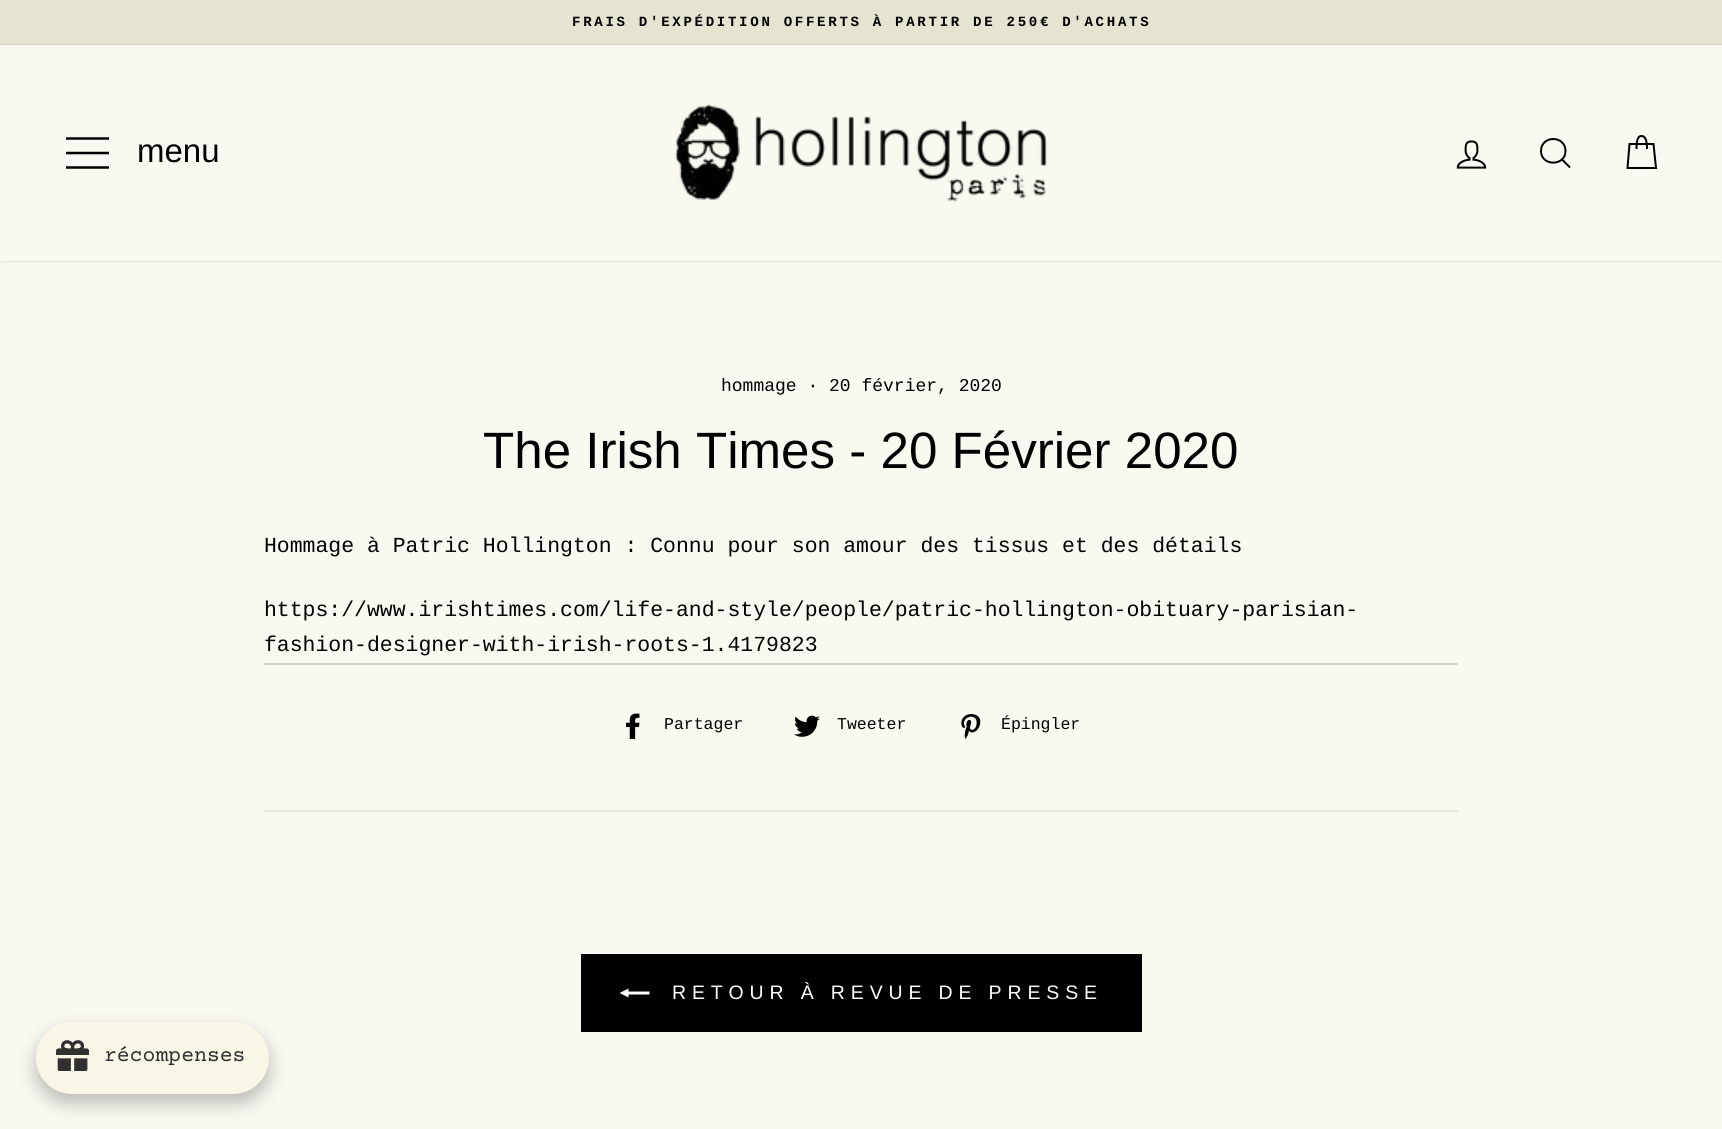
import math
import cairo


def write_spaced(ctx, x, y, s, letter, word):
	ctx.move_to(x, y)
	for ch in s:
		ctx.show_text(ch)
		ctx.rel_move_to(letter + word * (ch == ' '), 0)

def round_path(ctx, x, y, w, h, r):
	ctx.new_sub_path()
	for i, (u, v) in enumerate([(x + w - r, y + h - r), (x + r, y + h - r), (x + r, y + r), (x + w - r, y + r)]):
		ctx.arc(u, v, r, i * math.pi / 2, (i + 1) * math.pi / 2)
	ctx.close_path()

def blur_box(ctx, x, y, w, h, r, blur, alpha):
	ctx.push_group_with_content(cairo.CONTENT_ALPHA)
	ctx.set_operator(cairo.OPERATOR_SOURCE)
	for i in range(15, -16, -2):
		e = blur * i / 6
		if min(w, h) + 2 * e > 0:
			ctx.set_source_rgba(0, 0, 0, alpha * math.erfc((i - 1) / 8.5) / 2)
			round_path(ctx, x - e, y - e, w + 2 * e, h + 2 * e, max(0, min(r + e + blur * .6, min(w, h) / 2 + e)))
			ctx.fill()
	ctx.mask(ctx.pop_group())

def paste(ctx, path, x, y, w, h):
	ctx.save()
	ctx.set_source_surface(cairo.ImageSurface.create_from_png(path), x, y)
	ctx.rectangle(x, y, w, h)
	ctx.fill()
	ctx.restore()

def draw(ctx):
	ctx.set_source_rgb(0.976, 0.976, 0.949)
	ctx.paint()
	ctx.set_source_rgb(0.894, 0.894, 0.82)
	ctx.rectangle(0, 0, 1722, 45)
	ctx.fill()
	ctx.select_font_face('Liberation Mono', cairo.FONT_SLANT_NORMAL, cairo.FONT_WEIGHT_BOLD)
	ctx.set_font_size(14.1)
	ctx.set_source_rgb(0, 0, 0)
	write_spaced(ctx, 572, 26, 'FRAIS D\'EXPÉDITION OFFERTS À PARTIR DE 250€ D\'ACHATS', 2.68, 0)
	ctx.save()
	ctx.set_fill_rule(cairo.FILL_RULE_EVEN_ODD)
	ctx.new_path()
	ctx.move_to(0, 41)
	ctx.line_to(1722, 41)
	ctx.line_to(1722, 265)
	ctx.line_to(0, 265)
	ctx.close_path()
	ctx.move_to(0, 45)
	ctx.line_to(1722, 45)
	ctx.line_to(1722, 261)
	ctx.line_to(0, 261)
	ctx.close_path()
	ctx.clip()
	ctx.set_source_rgb(0, 0, 0)
	blur_box(ctx, 0, 45, 1722, 216, 0, 1, 0.2)
	ctx.restore()
	ctx.new_path()
	ctx.move_to(66, 138.5)
	ctx.line_to(109, 138.5)
	ctx.move_to(66, 153)
	ctx.line_to(109, 153)
	ctx.move_to(66, 167.5)
	ctx.line_to(109, 167.5)
	ctx.set_line_width(2.5)
	ctx.stroke()
	ctx.select_font_face('Liberation Sans')
	ctx.set_font_size(33)
	ctx.move_to(137, 162)
	ctx.show_text('menu')
	paste(ctx, 'media/1.png', 675, 104, 372, 98)
	paste(ctx, 'media/2.png', 1456, 140, 31, 29)
	ctx.new_path()
	ctx.move_to(1565.5, 151)
	ctx.curve_to(1565.5, 166.5, 1541, 166.5, 1541, 151)
	ctx.curve_to(1541, 135, 1565.5, 135, 1565.5, 151)
	ctx.close_path()
	ctx.move_to(1570, 167.5)
	ctx.line_to(1562, 159.5)
	ctx.set_line_width(2)
	ctx.stroke()
	ctx.new_path()
	ctx.move_to(1636.5, 149)
	ctx.curve_to(1636.5, 138.5, 1638.5, 136, 1641.5, 136)
	ctx.curve_to(1644.5, 136, 1647, 138.5, 1647, 149)
	ctx.move_to(1629.5, 144)
	ctx.line_to(1653.5, 144)
	ctx.line_to(1656, 168)
	ctx.line_to(1627.5, 168)
	ctx.close_path()
	ctx.stroke()
	ctx.select_font_face('Liberation Mono')
	ctx.set_font_size(18)
	ctx.move_to(721, 391)
	ctx.show_text('hommage · 20 février, 2020')
	ctx.select_font_face('Liberation Sans')
	ctx.set_font_size(51.1)
	ctx.move_to(483, 468)
	ctx.show_text('The Irish Times - 20 Février 2020')
	ctx.select_font_face('Liberation Mono')
	ctx.set_font_size(21.45)
	ctx.move_to(264, 552)
	ctx.show_text('Hommage à Patric Hollington : Connu pour son amour des tissus et des détails')
	ctx.set_source_rgb(0.831, 0.831, 0.808)
	ctx.rectangle(264, 663, 1194, 2)
	ctx.fill()
	ctx.set_source_rgb(0, 0, 0)
	ctx.move_to(264, 616)
	ctx.show_text('https://www.irishtimes.com/life-and-style/people/patric-hollington-obituary-parisian-')
	ctx.move_to(264, 651)
	ctx.show_text('fashion-designer-with-irish-roots-1.4179823')
	paste(ctx, 'media/3.png', 626, 713, 14, 26)
	ctx.set_font_size(16.5)
	ctx.move_to(664, 729)
	ctx.show_text('Partager')
	paste(ctx, 'media/4.png', 794, 715, 26, 22)
	ctx.move_to(837, 729)
	ctx.show_text('Tweeter')
	paste(ctx, 'media/5.png', 961, 714, 20, 25)
	ctx.move_to(1001, 729)
	ctx.show_text('Épingler')
	ctx.set_source_rgb(0.91, 0.91, 0.882)
	ctx.rectangle(264, 810, 1194, 2)
	ctx.fill()
	ctx.set_source_rgb(0, 0, 0)
	ctx.rectangle(581, 954, 561, 78)
	ctx.fill()
	ctx.set_source_rgb(1, 1, 1)
	ctx.new_path()
	ctx.move_to(649.5, 991.5)
	ctx.line_to(649.5, 994.5)
	ctx.line_to(628.5, 994.5)
	ctx.line_to(628.5, 997.5)
	ctx.line_to(619.5, 993)
	ctx.line_to(628.5, 988.5)
	ctx.line_to(628.5, 991.5)
	ctx.close_path()
	ctx.fill()
	ctx.select_font_face('Liberation Sans')
	ctx.set_font_size(19.5)
	write_spaced(ctx, 672, 999, 'RETOUR À REVUE DE PRESSE', 5.85, 0)
	ctx.set_source_rgb(0, 0, 0)
	blur_box(ctx, 36, 1031, 233, 72, 36, 9, 0.25)
	ctx.set_source_rgb(0.973, 0.961, 0.91)
	round_path(ctx, 36, 1022, 233, 72, 36)
	ctx.fill()
	paste(ctx, 'media/6.png', 56, 1040, 33, 31)
	ctx.select_font_face('Courier Prime')
	ctx.set_font_size(21.45)
	ctx.set_source_rgb(0.188, 0.188, 0.188)
	ctx.move_to(104, 1061)
	ctx.show_text('récompenses')


surface = cairo.ImageSurface(cairo.FORMAT_RGB24, 1722, 1129)
ctx = cairo.Context(surface)
options = cairo.FontOptions()
options.set_hint_metrics(cairo.HINT_METRICS_OFF)
options.set_hint_style(cairo.HINT_STYLE_NONE)
ctx.set_font_options(options)
ctx.set_miter_limit(4)
draw(ctx)
surface.write_to_png('image.png')
